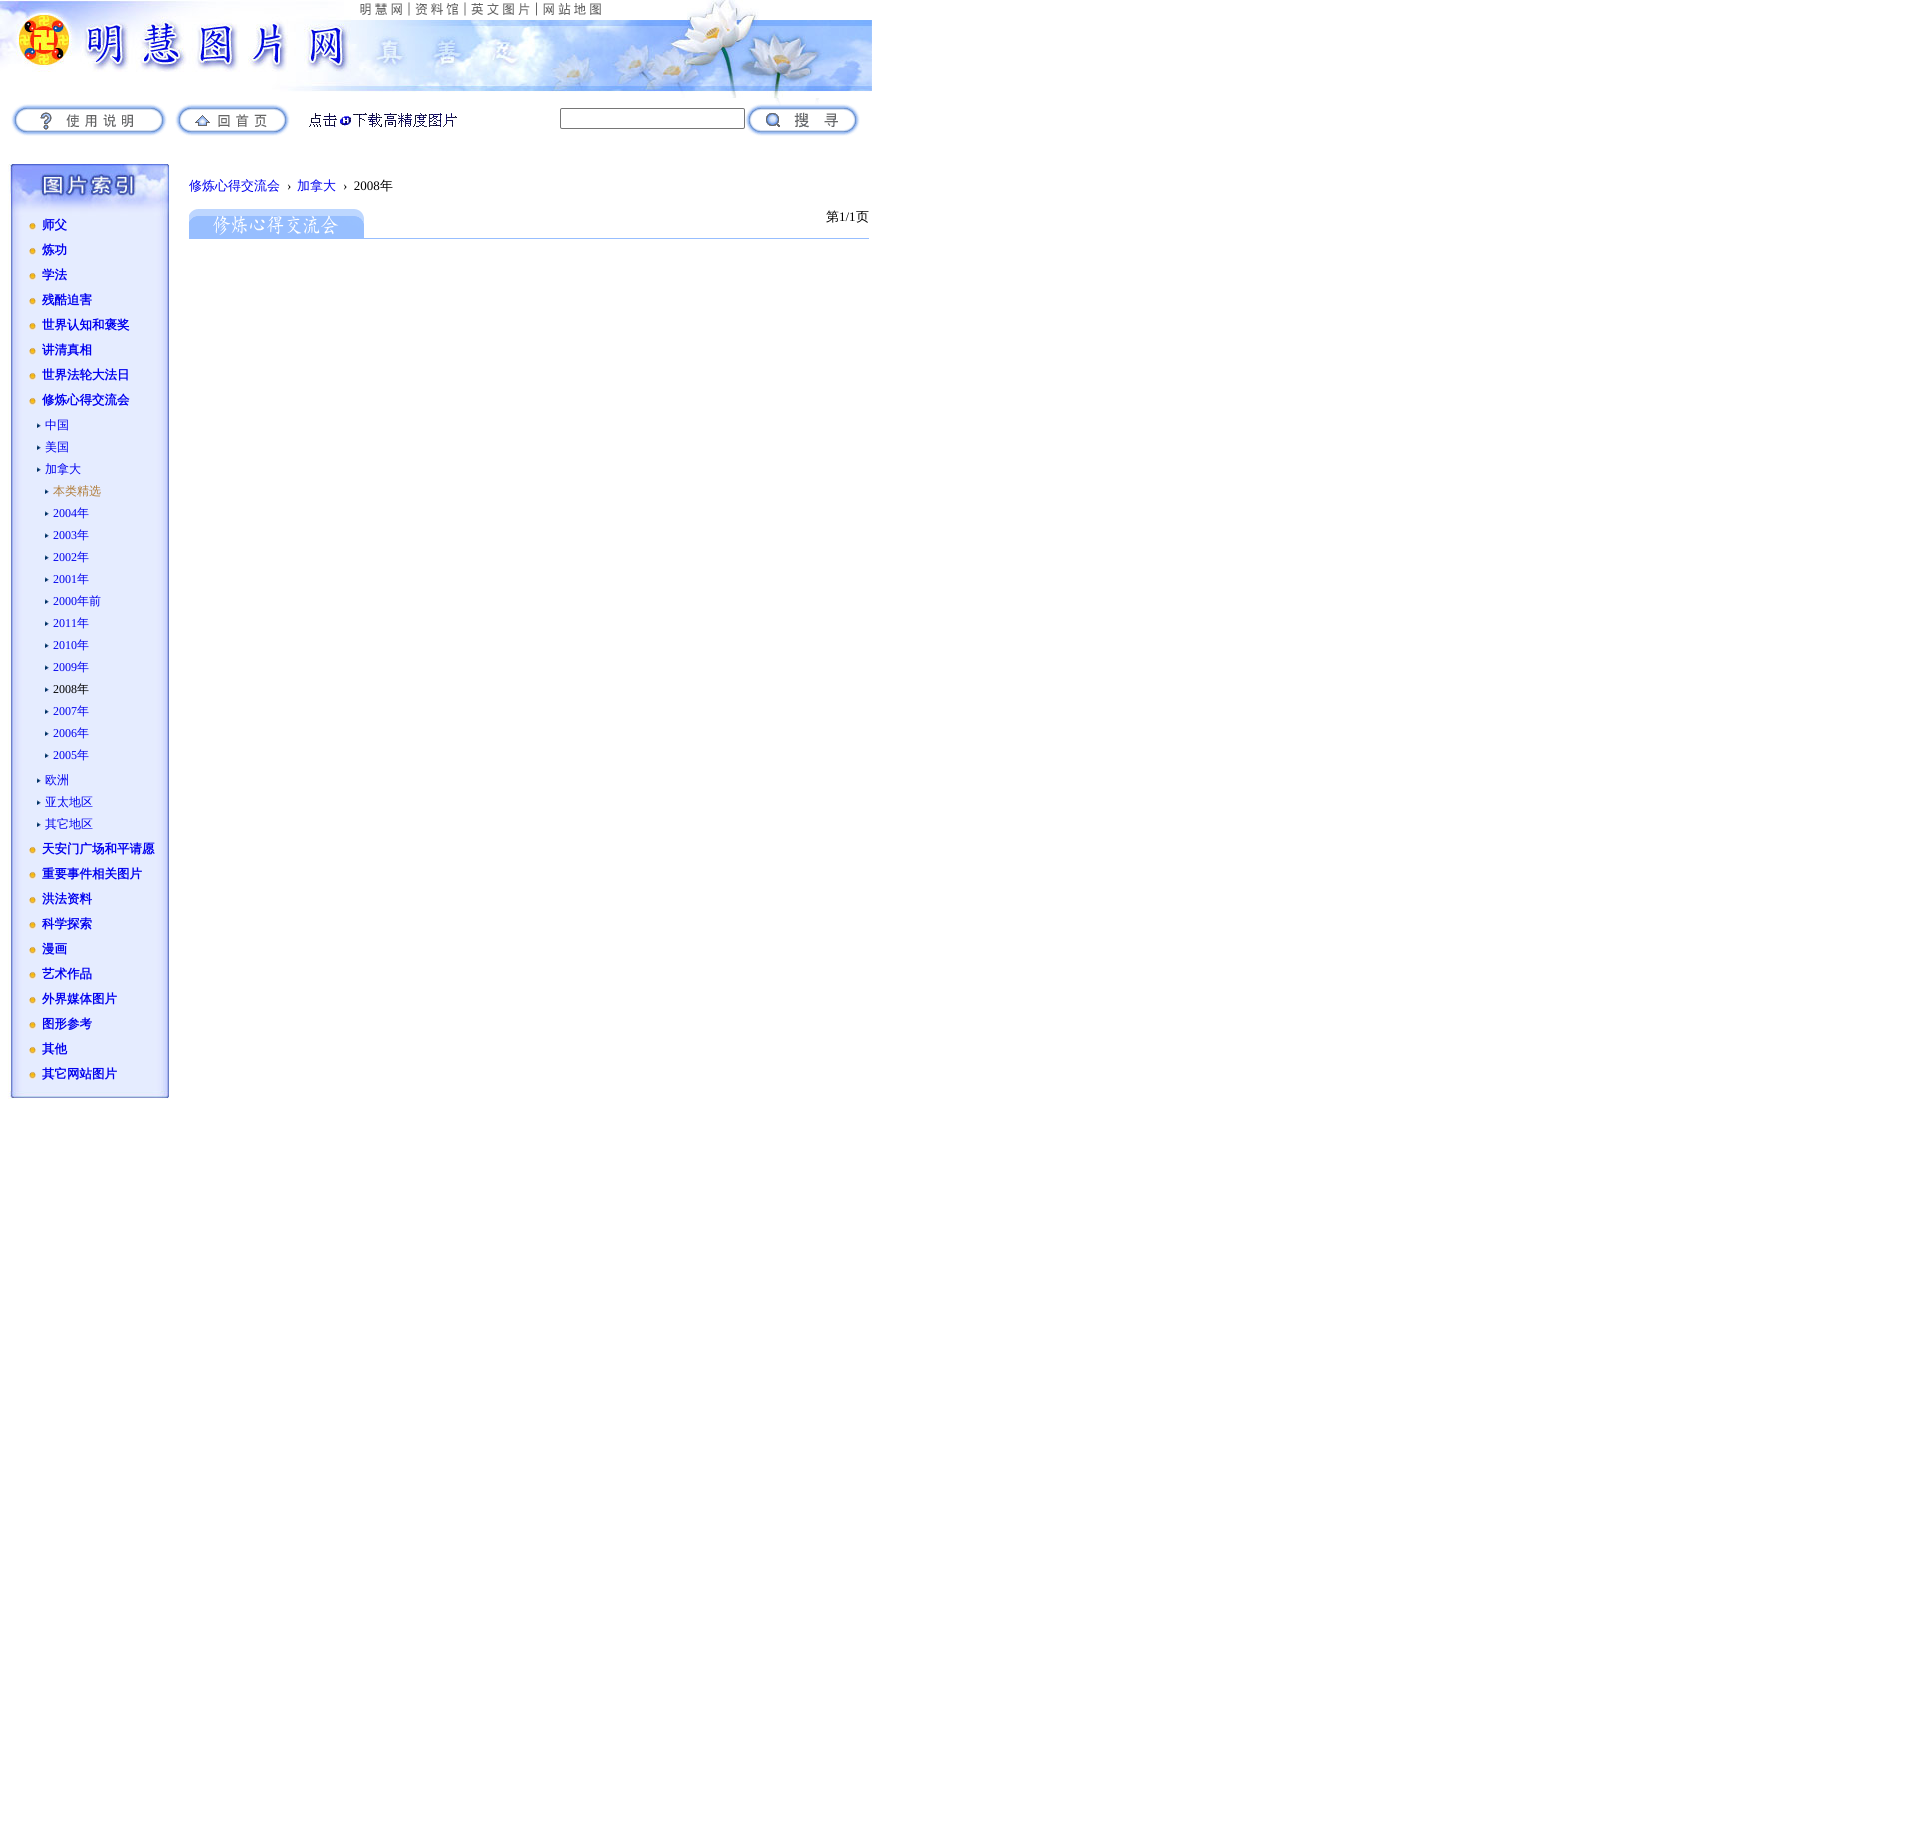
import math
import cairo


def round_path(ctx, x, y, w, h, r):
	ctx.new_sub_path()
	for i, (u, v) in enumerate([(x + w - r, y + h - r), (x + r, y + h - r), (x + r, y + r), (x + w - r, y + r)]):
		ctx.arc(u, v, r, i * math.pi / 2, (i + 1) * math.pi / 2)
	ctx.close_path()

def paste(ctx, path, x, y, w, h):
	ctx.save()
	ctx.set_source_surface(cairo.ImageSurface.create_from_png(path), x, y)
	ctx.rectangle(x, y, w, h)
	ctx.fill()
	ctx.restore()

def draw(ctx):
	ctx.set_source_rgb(1, 1, 1)
	ctx.paint()
	paste(ctx, 'media/1.png', 0, 0, 351, 92)
	paste(ctx, 'media/2.png', 360, 2, 50, 14)
	paste(ctx, 'media/3.png', 415, 2, 51, 14)
	paste(ctx, 'media/4.png', 471, 2, 66, 14)
	paste(ctx, 'media/5.png', 543, 3, 58, 12)
	paste(ctx, 'media/6.png', 687, 0, 72, 20)
	paste(ctx, 'media/7.png', 351, 20, 521, 78)
	paste(ctx, 'media/8.png', 11, 104, 156, 32)
	paste(ctx, 'media/9.png', 175, 104, 115, 32)
	paste(ctx, 'media/10.png', 309, 113, 148, 15)
	round_path(ctx, 560.5, 108.5, 184, 20, 1.5)
	ctx.set_source_rgb(0.463, 0.463, 0.463)
	ctx.set_line_width(1)
	ctx.stroke()
	paste(ctx, 'media/11.png', 745, 98, 115, 38)
	ctx.select_font_face('WenQuanYi Zen Hei Medium')
	ctx.set_font_size(13)
	ctx.set_source_rgb(0, 0, 0.933)
	ctx.move_to(189, 190)
	ctx.show_text('修炼心得交流会')
	ctx.select_font_face('Liberation Serif')
	ctx.set_source_rgb(0, 0, 0)
	ctx.move_to(287, 190)
	ctx.show_text('›')
	ctx.select_font_face('WenQuanYi Zen Hei Medium')
	ctx.set_source_rgb(0, 0, 0.933)
	ctx.move_to(297, 190)
	ctx.show_text('加拿大')
	ctx.select_font_face('Liberation Serif')
	ctx.set_source_rgb(0, 0, 0)
	ctx.move_to(343, 190)
	ctx.show_text('›  2008')
	ctx.select_font_face('WenQuanYi Zen Hei Medium')
	ctx.move_to(380, 190)
	ctx.show_text('年')
	paste(ctx, 'media/12.png', 189, 209, 175, 29)
	ctx.move_to(826, 221)
	ctx.show_text('第')
	ctx.select_font_face('Liberation Serif')
	ctx.move_to(839, 221)
	ctx.show_text('1/1')
	ctx.select_font_face('WenQuanYi Zen Hei Medium')
	ctx.move_to(856, 221)
	ctx.show_text('页')
	ctx.set_source_rgb(0.592, 0.745, 1)
	ctx.rectangle(189, 238, 680, 1)
	ctx.fill()
	paste(ctx, 'media/13.png', 8, 164, 161, 53)
	paste(ctx, 'media/14.png', 8, 217, 161, 874)
	paste(ctx, 'media/15.png', 29, 222, 7, 8)
	ctx.select_font_face('WenQuanYi Zen Hei', cairo.FONT_SLANT_NORMAL, cairo.FONT_WEIGHT_BOLD)
	ctx.set_font_size(12.5)
	ctx.set_source_rgb(0, 0, 0.933)
	ctx.move_to(42, 229)
	ctx.show_text('师父')
	paste(ctx, 'media/15.png', 29, 247, 7, 8)
	ctx.move_to(42, 254)
	ctx.show_text('炼功')
	paste(ctx, 'media/15.png', 29, 272, 7, 8)
	ctx.move_to(42, 279)
	ctx.show_text('学法')
	paste(ctx, 'media/15.png', 29, 297, 7, 8)
	ctx.move_to(42, 304)
	ctx.show_text('残酷迫害')
	paste(ctx, 'media/15.png', 29, 322, 7, 8)
	ctx.move_to(42, 329)
	ctx.show_text('世界认知和褒奖')
	paste(ctx, 'media/15.png', 29, 347, 7, 8)
	ctx.move_to(42, 354)
	ctx.show_text('讲清真相')
	paste(ctx, 'media/15.png', 29, 372, 7, 8)
	ctx.move_to(42, 379)
	ctx.show_text('世界法轮大法日')
	paste(ctx, 'media/15.png', 29, 397, 7, 8)
	ctx.move_to(42, 404)
	ctx.show_text('修炼心得交流会')
	paste(ctx, 'media/16.png', 37, 423, 4, 5)
	ctx.select_font_face('WenQuanYi Zen Hei Medium')
	ctx.set_font_size(12)
	ctx.move_to(45, 429)
	ctx.show_text('中国')
	paste(ctx, 'media/16.png', 37, 445, 4, 5)
	ctx.move_to(45, 451)
	ctx.show_text('美国')
	paste(ctx, 'media/16.png', 37, 467, 4, 5)
	ctx.move_to(45, 473)
	ctx.show_text('加拿大')
	paste(ctx, 'media/16.png', 45, 489, 4, 5)
	ctx.set_source_rgb(0.694, 0.49, 0.227)
	ctx.move_to(53, 495)
	ctx.show_text('本类精选')
	paste(ctx, 'media/16.png', 45, 511, 4, 5)
	ctx.select_font_face('Liberation Serif')
	ctx.set_source_rgb(0, 0, 0.933)
	ctx.move_to(53, 517)
	ctx.show_text('2004')
	ctx.select_font_face('WenQuanYi Zen Hei Medium')
	ctx.move_to(77, 517)
	ctx.show_text('年')
	paste(ctx, 'media/16.png', 45, 533, 4, 5)
	ctx.select_font_face('Liberation Serif')
	ctx.move_to(53, 539)
	ctx.show_text('2003')
	ctx.select_font_face('WenQuanYi Zen Hei Medium')
	ctx.move_to(77, 539)
	ctx.show_text('年')
	paste(ctx, 'media/16.png', 45, 555, 4, 5)
	ctx.select_font_face('Liberation Serif')
	ctx.move_to(53, 561)
	ctx.show_text('2002')
	ctx.select_font_face('WenQuanYi Zen Hei Medium')
	ctx.move_to(77, 561)
	ctx.show_text('年')
	paste(ctx, 'media/16.png', 45, 577, 4, 5)
	ctx.select_font_face('Liberation Serif')
	ctx.move_to(53, 583)
	ctx.show_text('2001')
	ctx.select_font_face('WenQuanYi Zen Hei Medium')
	ctx.move_to(77, 583)
	ctx.show_text('年')
	paste(ctx, 'media/16.png', 45, 599, 4, 5)
	ctx.select_font_face('Liberation Serif')
	ctx.move_to(53, 605)
	ctx.show_text('2000')
	ctx.select_font_face('WenQuanYi Zen Hei Medium')
	ctx.move_to(77, 605)
	ctx.show_text('年前')
	paste(ctx, 'media/16.png', 45, 621, 4, 5)
	ctx.select_font_face('Liberation Serif')
	ctx.move_to(53, 627)
	ctx.show_text('2011')
	ctx.select_font_face('WenQuanYi Zen Hei Medium')
	ctx.move_to(77, 627)
	ctx.show_text('年')
	paste(ctx, 'media/16.png', 45, 643, 4, 5)
	ctx.select_font_face('Liberation Serif')
	ctx.move_to(53, 649)
	ctx.show_text('2010')
	ctx.select_font_face('WenQuanYi Zen Hei Medium')
	ctx.move_to(77, 649)
	ctx.show_text('年')
	paste(ctx, 'media/16.png', 45, 665, 4, 5)
	ctx.select_font_face('Liberation Serif')
	ctx.move_to(53, 671)
	ctx.show_text('2009')
	ctx.select_font_face('WenQuanYi Zen Hei Medium')
	ctx.move_to(77, 671)
	ctx.show_text('年')
	paste(ctx, 'media/16.png', 45, 687, 4, 5)
	ctx.select_font_face('Liberation Serif')
	ctx.set_source_rgb(0, 0, 0)
	ctx.move_to(53, 693)
	ctx.show_text('2008')
	ctx.select_font_face('WenQuanYi Zen Hei Medium')
	ctx.move_to(77, 693)
	ctx.show_text('年')
	paste(ctx, 'media/16.png', 45, 709, 4, 5)
	ctx.select_font_face('Liberation Serif')
	ctx.set_source_rgb(0, 0, 0.933)
	ctx.move_to(53, 715)
	ctx.show_text('2007')
	ctx.select_font_face('WenQuanYi Zen Hei Medium')
	ctx.move_to(77, 715)
	ctx.show_text('年')
	paste(ctx, 'media/16.png', 45, 731, 4, 5)
	ctx.select_font_face('Liberation Serif')
	ctx.move_to(53, 737)
	ctx.show_text('2006')
	ctx.select_font_face('WenQuanYi Zen Hei Medium')
	ctx.move_to(77, 737)
	ctx.show_text('年')
	paste(ctx, 'media/16.png', 45, 753, 4, 5)
	ctx.select_font_face('Liberation Serif')
	ctx.move_to(53, 759)
	ctx.show_text('2005')
	ctx.select_font_face('WenQuanYi Zen Hei Medium')
	ctx.move_to(77, 759)
	ctx.show_text('年')
	paste(ctx, 'media/16.png', 37, 778, 4, 5)
	ctx.move_to(45, 784)
	ctx.show_text('欧洲')
	paste(ctx, 'media/16.png', 37, 800, 4, 5)
	ctx.move_to(45, 806)
	ctx.show_text('亚太地区')
	paste(ctx, 'media/16.png', 37, 822, 4, 5)
	ctx.move_to(45, 828)
	ctx.show_text('其它地区')
	paste(ctx, 'media/15.png', 29, 846, 7, 8)
	ctx.select_font_face('WenQuanYi Zen Hei', cairo.FONT_SLANT_NORMAL, cairo.FONT_WEIGHT_BOLD)
	ctx.set_font_size(12.5)
	ctx.move_to(42, 853)
	ctx.show_text('天安门广场和平请愿')
	paste(ctx, 'media/15.png', 29, 871, 7, 8)
	ctx.move_to(42, 878)
	ctx.show_text('重要事件相关图片')
	paste(ctx, 'media/15.png', 29, 896, 7, 8)
	ctx.move_to(42, 903)
	ctx.show_text('洪法资料')
	paste(ctx, 'media/15.png', 29, 921, 7, 8)
	ctx.move_to(42, 928)
	ctx.show_text('科学探索')
	paste(ctx, 'media/15.png', 29, 946, 7, 8)
	ctx.move_to(42, 953)
	ctx.show_text('漫画')
	paste(ctx, 'media/15.png', 29, 971, 7, 8)
	ctx.move_to(42, 978)
	ctx.show_text('艺术作品')
	paste(ctx, 'media/15.png', 29, 996, 7, 8)
	ctx.move_to(42, 1003)
	ctx.show_text('外界媒体图片')
	paste(ctx, 'media/15.png', 29, 1021, 7, 8)
	ctx.move_to(42, 1028)
	ctx.show_text('图形参考')
	paste(ctx, 'media/15.png', 29, 1046, 7, 8)
	ctx.move_to(42, 1053)
	ctx.show_text('其他')
	paste(ctx, 'media/15.png', 29, 1071, 7, 8)
	ctx.move_to(42, 1078)
	ctx.show_text('其它网站图片')
	paste(ctx, 'media/17.png', 8, 1091, 161, 8)


surface = cairo.ImageSurface(cairo.FORMAT_RGB24, 1921, 1828)
ctx = cairo.Context(surface)
options = cairo.FontOptions()
options.set_hint_metrics(cairo.HINT_METRICS_OFF)
options.set_hint_style(cairo.HINT_STYLE_NONE)
ctx.set_font_options(options)
ctx.set_miter_limit(4)
draw(ctx)
surface.write_to_png('image.png')
